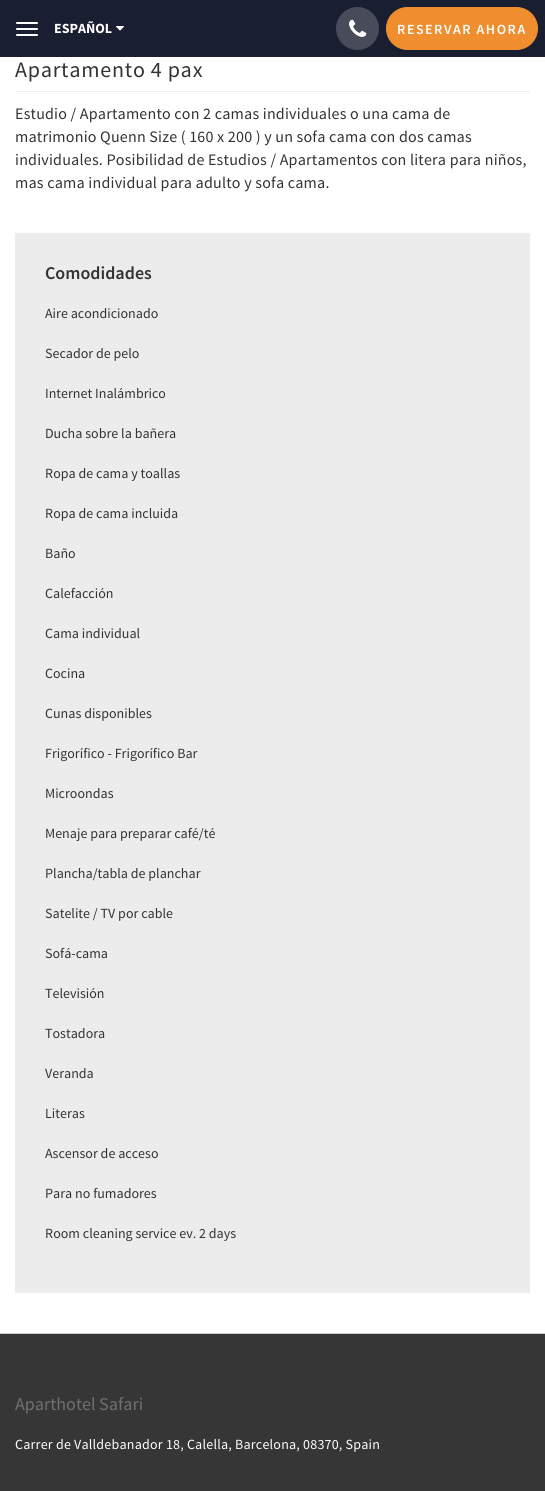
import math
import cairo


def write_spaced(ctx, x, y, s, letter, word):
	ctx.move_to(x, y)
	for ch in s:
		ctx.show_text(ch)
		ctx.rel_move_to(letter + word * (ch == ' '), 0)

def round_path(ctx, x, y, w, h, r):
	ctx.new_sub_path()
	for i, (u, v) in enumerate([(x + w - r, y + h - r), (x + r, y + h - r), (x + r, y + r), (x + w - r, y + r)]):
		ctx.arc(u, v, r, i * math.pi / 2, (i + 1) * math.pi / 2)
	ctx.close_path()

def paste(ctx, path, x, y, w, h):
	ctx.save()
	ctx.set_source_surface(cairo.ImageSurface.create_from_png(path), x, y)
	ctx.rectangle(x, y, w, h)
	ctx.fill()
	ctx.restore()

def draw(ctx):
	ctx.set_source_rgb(1, 1, 1)
	ctx.paint()
	ctx.set_source_rgb(0.098, 0.118, 0.192)
	ctx.rectangle(0, 0, 545, 57)
	ctx.fill()
	ctx.set_source_rgb(1, 1, 1)
	round_path(ctx, 16, 22, 22, 2, 1)
	ctx.fill()
	round_path(ctx, 16, 28, 22, 2, 1)
	ctx.fill()
	round_path(ctx, 16, 34, 22, 2, 1)
	ctx.fill()
	ctx.select_font_face('Source Sans Pro', cairo.FONT_SLANT_NORMAL, cairo.FONT_WEIGHT_BOLD)
	ctx.set_font_size(14)
	ctx.move_to(54, 33)
	ctx.show_text('ESPAÑOL')
	paste(ctx, 'media/1.png', 116, 26, 8, 5)
	ctx.set_source_rgb(0.278, 0.294, 0.353)
	ctx.arc(357.5, 28.5, 21.5, 0, 2 * math.pi)
	ctx.fill()
	paste(ctx, 'media/2.png', 349, 19, 18, 18)
	ctx.set_source_rgb(0.937, 0.553, 0.184)
	round_path(ctx, 386.5, 7.5, 151, 42, 21)
	ctx.fill_preserve()
	ctx.set_line_width(1)
	ctx.stroke()
	ctx.select_font_face('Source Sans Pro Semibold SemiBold')
	ctx.set_source_rgb(1, 1, 1)
	write_spaced(ctx, 397, 34, 'RESERVAR AHORA', 1.5, 0)
	ctx.set_source_rgb(0.925, 0.925, 0.925)
	ctx.rectangle(15, 91, 515, 1)
	ctx.fill()
	ctx.select_font_face('Source Sans Pro')
	ctx.set_font_size(22)
	ctx.set_source_rgb(0.2, 0.2, 0.2)
	write_spaced(ctx, 15, 77, 'Apartamento 4 pax', 0.75, 0)
	ctx.set_font_size(16)
	for x, y, s in [
		(15, 119, 'Estudio / Apartamento con 2 camas individuales o una cama de'),
		(15, 142, 'matrimonio Quenn Size ( 160 x 200 ) y un sofa cama con dos camas'),
		(15, 165, 'individuales. Posibilidad de Estudios / Apartamentos con litera para niños,'),
		(15, 188, 'mas cama individual para adulto y sofa cama.'),
	]:
		write_spaced(ctx, x, y, s, 0.2, 0)
	ctx.set_source_rgb(0.925, 0.925, 0.925)
	ctx.rectangle(15, 233, 515, 1060)
	ctx.fill()
	ctx.select_font_face('Source Sans Pro Semibold SemiBold')
	ctx.set_font_size(18)
	ctx.set_source_rgb(0.2, 0.2, 0.2)
	ctx.move_to(45, 279)
	ctx.show_text('Comodidades')
	ctx.select_font_face('Source Sans Pro')
	ctx.set_font_size(14)
	for x, y, s in [
		(45, 318, 'Aire acondicionado'),
		(45, 358, 'Secador de pelo'),
		(45, 398, 'Internet Inalámbrico'),
		(45, 438, 'Ducha sobre la bañera'),
		(45, 478, 'Ropa de cama y toallas'),
		(45, 518, 'Ropa de cama incluida'),
		(45, 558, 'Baño'),
		(45, 598, 'Calefacción'),
		(45, 638, 'Cama individual'),
		(45, 678, 'Cocina'),
		(45, 718, 'Cunas disponibles'),
		(45, 758, 'Frigorífico - Frigorífico Bar'),
		(45, 798, 'Microondas'),
		(45, 838, 'Menaje para preparar café/té'),
		(45, 878, 'Plancha/tabla de planchar'),
		(45, 918, 'Satelite / TV por cable'),
		(45, 958, 'Sofá-cama'),
		(45, 998, 'Televisión'),
		(45, 1038, 'Tostadora'),
		(45, 1078, 'Veranda'),
		(45, 1118, 'Literas'),
		(45, 1158, 'Ascensor de acceso'),
		(45, 1198, 'Para no fumadores'),
		(45, 1238, 'Room cleaning service ev. 2 days'),
	]:
		ctx.move_to(x, y)
		ctx.show_text(s)
	ctx.set_source_rgb(0.212, 0.212, 0.212)
	ctx.rectangle(0, 1334, 545, 157)
	ctx.fill()
	ctx.set_source_rgb(0.8, 0.8, 0.8)
	ctx.rectangle(0, 1333, 545, 1)
	ctx.fill()
	ctx.set_font_size(18)
	ctx.set_source_rgb(0.439, 0.439, 0.439)
	ctx.move_to(15, 1410)
	ctx.show_text('Aparthotel Safari')
	ctx.set_font_size(14)
	ctx.set_source_rgb(1, 1, 1)
	write_spaced(ctx, 15, 1449, 'Carrer de Valldebanador 18, Calella, Barcelona, 08370, Spain', 0.2, 0)


surface = cairo.ImageSurface(cairo.FORMAT_RGB24, 545, 1491)
ctx = cairo.Context(surface)
options = cairo.FontOptions()
options.set_hint_metrics(cairo.HINT_METRICS_OFF)
options.set_hint_style(cairo.HINT_STYLE_NONE)
ctx.set_font_options(options)
ctx.set_miter_limit(4)
draw(ctx)
surface.write_to_png('image.png')
